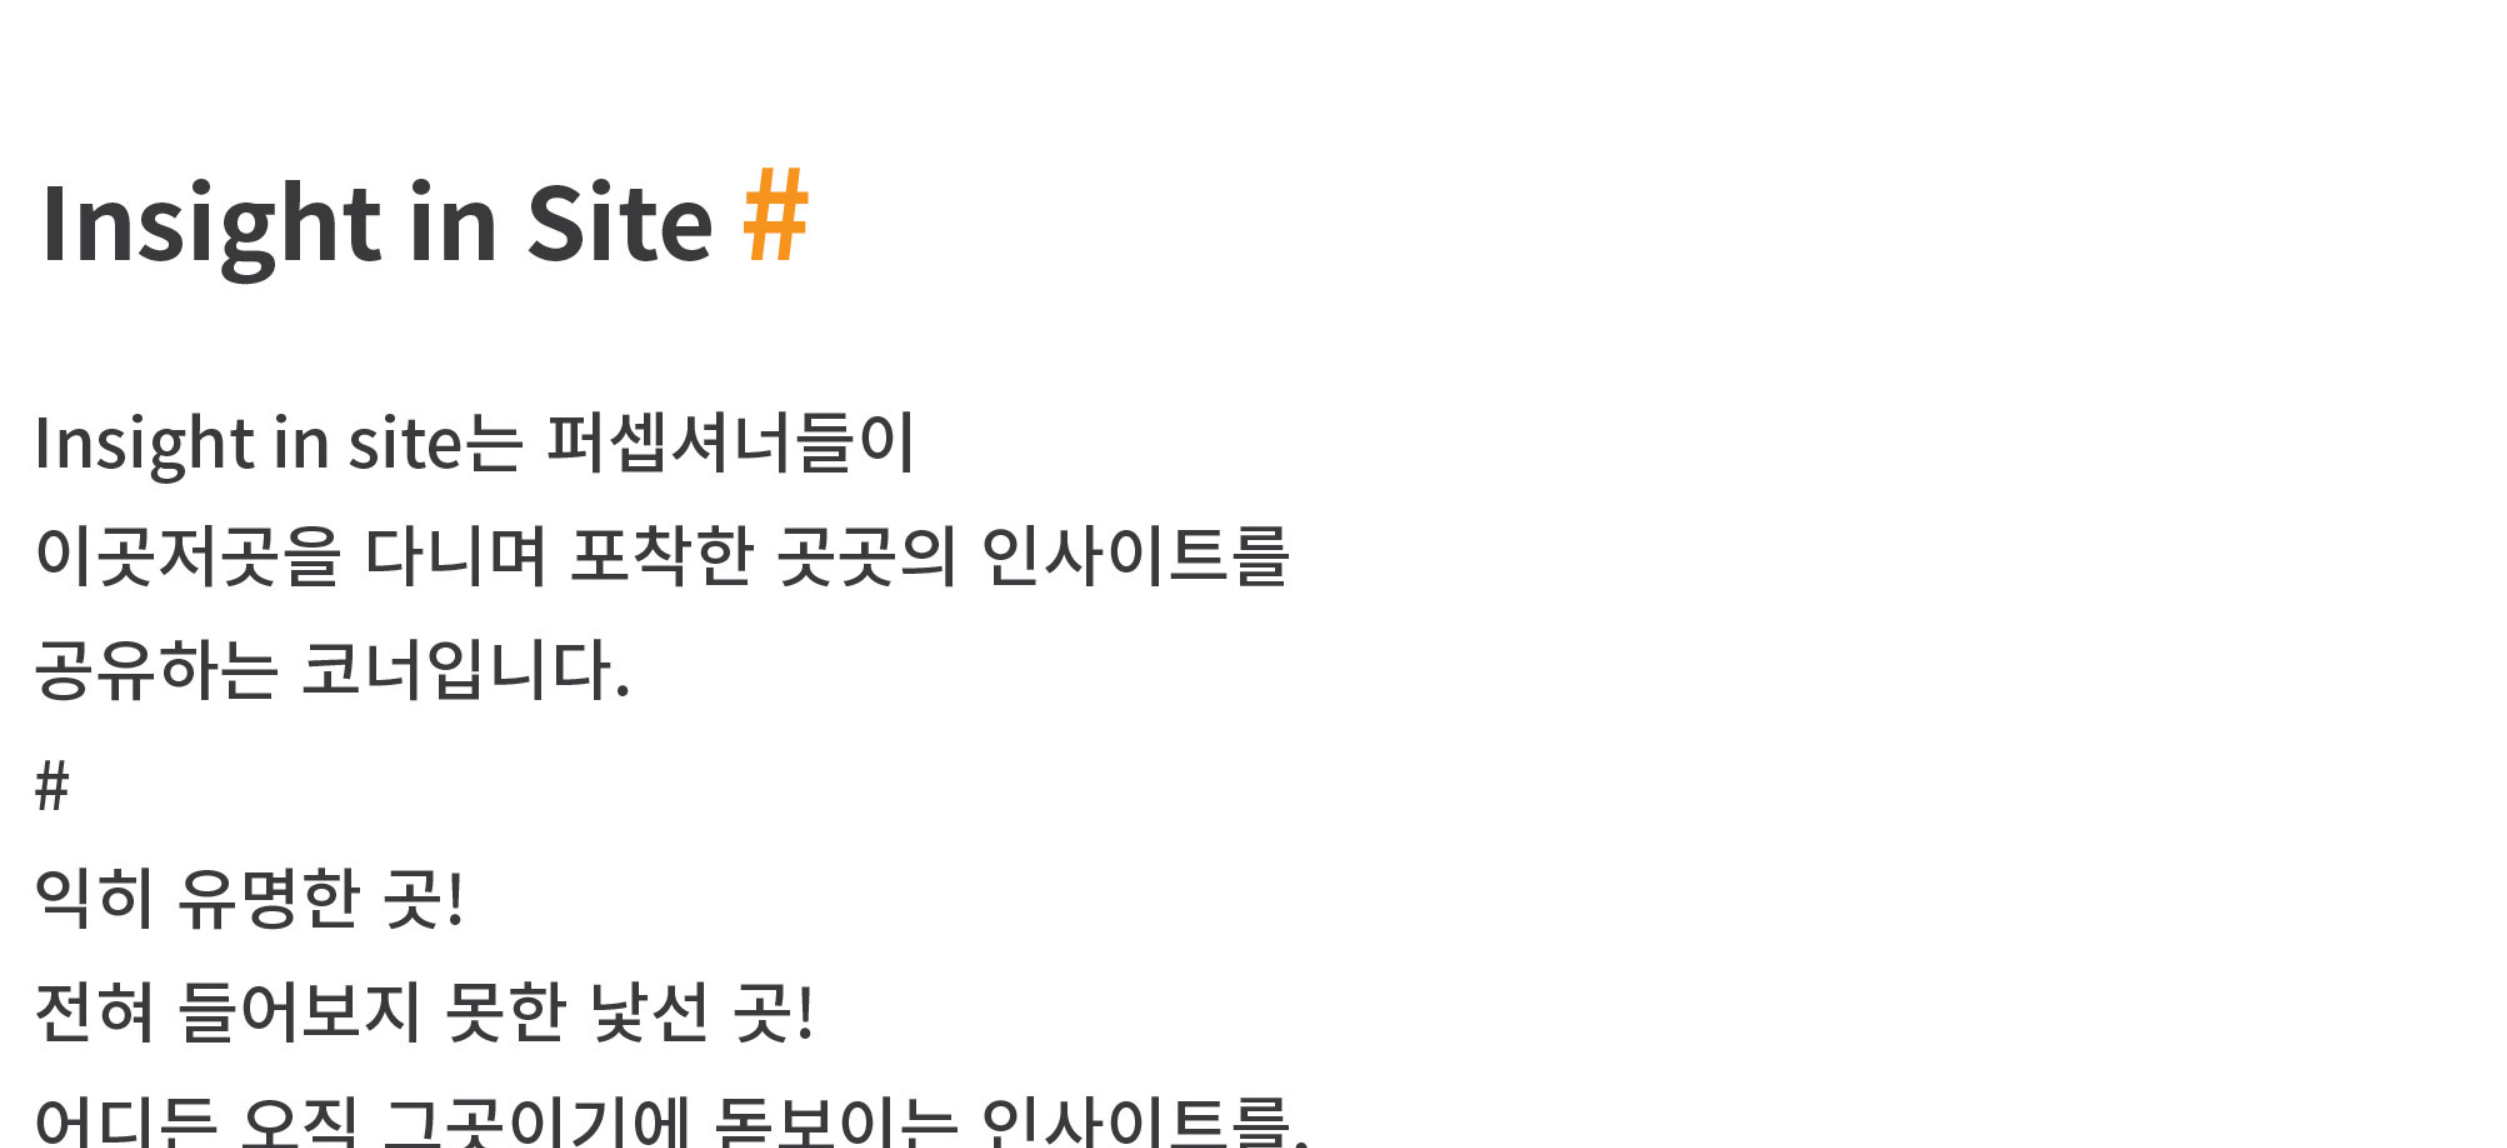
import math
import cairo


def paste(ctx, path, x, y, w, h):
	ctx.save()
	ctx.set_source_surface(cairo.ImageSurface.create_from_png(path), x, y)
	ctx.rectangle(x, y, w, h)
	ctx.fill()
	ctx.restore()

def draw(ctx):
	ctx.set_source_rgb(1, 1, 1)
	ctx.paint()
	paste(ctx, 'media/1.png', 30, 160, 1279, 988)


surface = cairo.ImageSurface(cairo.FORMAT_RGB24, 2507, 1148)
ctx = cairo.Context(surface)
options = cairo.FontOptions()
options.set_hint_metrics(cairo.HINT_METRICS_OFF)
options.set_hint_style(cairo.HINT_STYLE_NONE)
ctx.set_font_options(options)
ctx.set_miter_limit(4)
draw(ctx)
surface.write_to_png('image.png')
